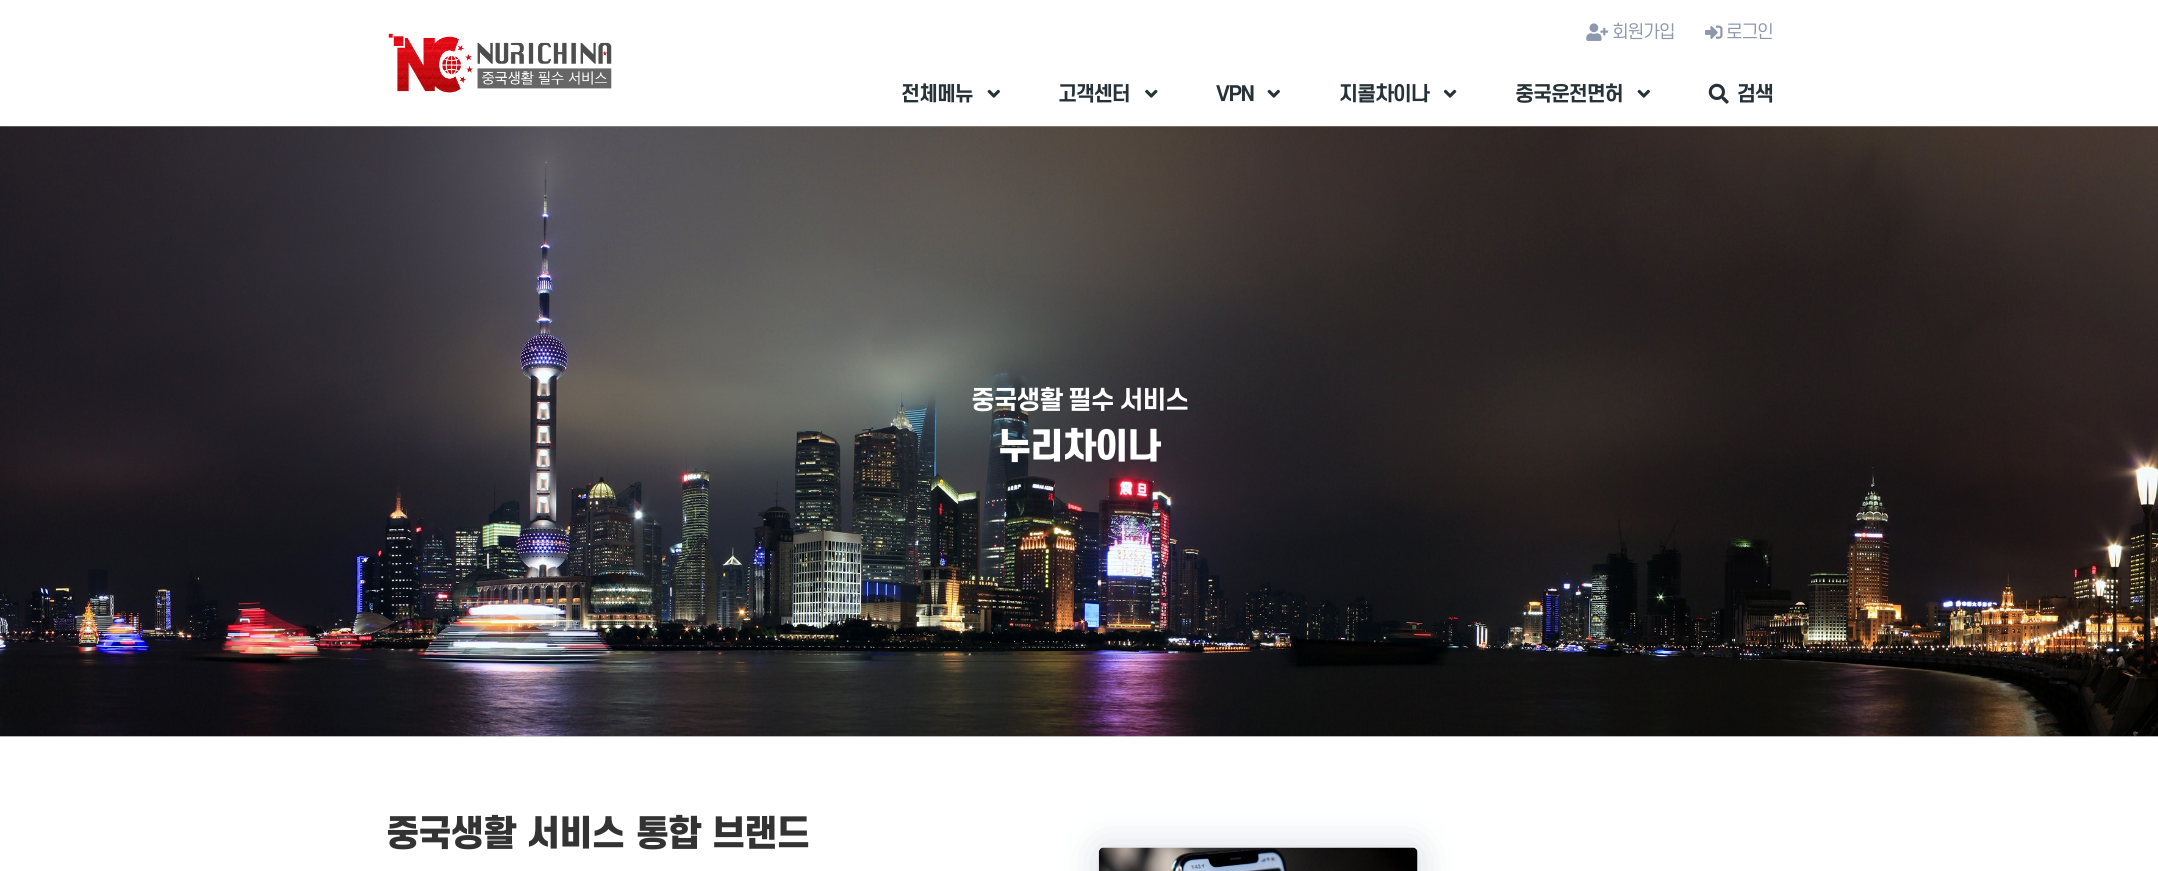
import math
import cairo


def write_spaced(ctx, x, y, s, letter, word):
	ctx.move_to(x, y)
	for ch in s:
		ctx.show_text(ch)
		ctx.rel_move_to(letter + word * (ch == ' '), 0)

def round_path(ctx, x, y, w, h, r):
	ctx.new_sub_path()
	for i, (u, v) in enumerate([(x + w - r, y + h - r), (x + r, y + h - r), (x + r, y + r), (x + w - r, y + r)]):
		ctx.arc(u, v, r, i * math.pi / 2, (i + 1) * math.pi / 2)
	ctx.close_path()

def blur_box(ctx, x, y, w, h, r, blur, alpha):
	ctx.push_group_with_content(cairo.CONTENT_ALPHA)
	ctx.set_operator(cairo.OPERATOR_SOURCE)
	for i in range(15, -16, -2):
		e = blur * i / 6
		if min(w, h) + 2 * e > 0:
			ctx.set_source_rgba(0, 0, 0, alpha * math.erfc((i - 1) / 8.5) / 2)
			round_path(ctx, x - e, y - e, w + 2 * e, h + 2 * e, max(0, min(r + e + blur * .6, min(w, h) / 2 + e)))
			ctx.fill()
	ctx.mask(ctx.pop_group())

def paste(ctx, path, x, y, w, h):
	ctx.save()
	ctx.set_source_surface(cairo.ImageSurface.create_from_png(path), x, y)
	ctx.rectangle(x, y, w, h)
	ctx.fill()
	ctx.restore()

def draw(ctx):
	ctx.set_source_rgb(1, 1, 1)
	ctx.paint()
	paste(ctx, 'media/1.png', 388, 33, 224, 60)
	paste(ctx, 'media/2.png', 1586, 23, 23, 18)
	ctx.select_font_face('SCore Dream')
	ctx.set_font_size(17.5)
	ctx.set_source_rgb(0.553, 0.592, 0.678)
	write_spaced(ctx, 1612, 38, '회원가입', -1.25, 0)
	paste(ctx, 'media/3.png', 1705, 25, 18, 14)
	write_spaced(ctx, 1726, 38, '로그인', -1.25, 0)
	ctx.select_font_face('SCore Dream', cairo.FONT_SLANT_NORMAL, cairo.FONT_WEIGHT_BOLD)
	ctx.set_font_size(20)
	ctx.set_source_rgb(0.149, 0.196, 0.22)
	write_spaced(ctx, 901, 101, '전체메뉴', -1.25, 0)
	paste(ctx, 'media/4.png', 987, 89, 13, 9)
	write_spaced(ctx, 1058, 101, '고객센터', -1.25, 0)
	paste(ctx, 'media/5.png', 1145, 89, 13, 9)
	write_spaced(ctx, 1216, 101, 'VPN', -1.25, 0)
	paste(ctx, 'media/4.png', 1267, 89, 13, 9)
	write_spaced(ctx, 1339, 101, '지콜차이나', -1.25, 0)
	paste(ctx, 'media/6.png', 1443, 89, 14, 9)
	write_spaced(ctx, 1515, 101, '중국운전면허', -1.25, 0)
	paste(ctx, 'media/4.png', 1637, 89, 13, 9)
	paste(ctx, 'media/7.png', 1708, 83, 21, 21)
	write_spaced(ctx, 1737, 101, '검색', -1.25, 0)
	paste(ctx, 'media/8.png', 0, 126, 2158, 611)
	ctx.set_font_size(25)
	ctx.set_source_rgb(1, 1, 1)
	write_spaced(ctx, 971, 409, '중국생활 필수 서비스', -1.25, 0)
	ctx.select_font_face('SCore Dream Black')
	ctx.set_font_size(35)
	write_spaced(ctx, 998, 459, '누리차이나', -1.25, 0)
	ctx.set_source_rgba(0, 0, 0, 0.1)
	ctx.rectangle(0, 736, 2158, 1)
	ctx.fill()
	ctx.set_source_rgb(0.2, 0.2, 0.2)
	write_spaced(ctx, 386, 846, '중국생활 서비스 통합 브랜드', -1.25, 2.5)
	ctx.set_source_rgb(0.451, 0.502, 0.616)
	blur_box(ctx, 1099, 848, 319, 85, 5, 19, 0.3)
	paste(ctx, 'media/9.png', 1098, 847, 320, 24)


surface = cairo.ImageSurface(cairo.FORMAT_RGB24, 2158, 871)
ctx = cairo.Context(surface)
options = cairo.FontOptions()
options.set_hint_metrics(cairo.HINT_METRICS_OFF)
options.set_hint_style(cairo.HINT_STYLE_NONE)
ctx.set_font_options(options)
ctx.set_miter_limit(4)
draw(ctx)
surface.write_to_png('image.png')
